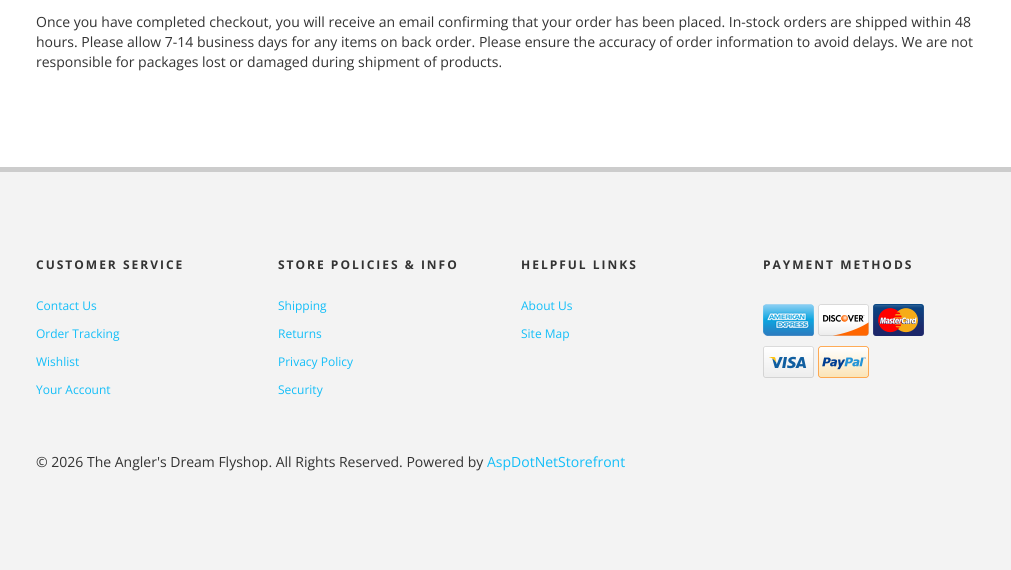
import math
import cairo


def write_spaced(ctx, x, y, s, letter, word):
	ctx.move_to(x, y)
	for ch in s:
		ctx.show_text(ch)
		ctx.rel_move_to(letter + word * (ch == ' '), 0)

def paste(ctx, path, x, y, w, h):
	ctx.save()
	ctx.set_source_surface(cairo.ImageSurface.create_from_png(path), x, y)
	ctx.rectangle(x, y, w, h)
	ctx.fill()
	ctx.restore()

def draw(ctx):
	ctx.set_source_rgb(1, 1, 1)
	ctx.paint()
	ctx.select_font_face('Open Sans')
	ctx.set_font_size(14)
	ctx.set_source_rgb(0.2, 0.2, 0.2)
	for x, y, s in [
		(36, 27, 'Once you have completed checkout, you will receive an email confirming that your order has been placed. In-stock orders are shipped within 48'),
		(36, 47, 'hours. Please allow 7-14 business days for any items on back order. Please ensure the accuracy of order information to avoid delays. We are not'),
		(36, 67, 'responsible for packages lost or damaged during shipment of products.'),
	]:
		ctx.move_to(x, y)
		ctx.show_text(s)
	ctx.set_source_rgb(0.953, 0.953, 0.953)
	ctx.rectangle(0, 172, 1011, 398)
	ctx.fill()
	ctx.set_source_rgb(0.8, 0.8, 0.8)
	ctx.rectangle(0, 167, 1011, 5)
	ctx.fill()
	ctx.select_font_face('Open Sans', cairo.FONT_SLANT_NORMAL, cairo.FONT_WEIGHT_BOLD)
	ctx.set_font_size(12)
	ctx.set_source_rgb(0.2, 0.2, 0.2)
	write_spaced(ctx, 36, 269, 'CUSTOMER SERVICE', 2, 0)
	ctx.select_font_face('Open Sans')
	ctx.set_source_rgb(0.075, 0.745, 0.969)
	for x, y, s in [
		(36, 310, 'Contact Us'),
		(36, 338, 'Order Tracking'),
		(36, 366, 'Wishlist'),
		(36, 394, 'Your Account'),
	]:
		ctx.move_to(x, y)
		ctx.show_text(s)
	ctx.select_font_face('Open Sans', cairo.FONT_SLANT_NORMAL, cairo.FONT_WEIGHT_BOLD)
	ctx.set_source_rgb(0.2, 0.2, 0.2)
	write_spaced(ctx, 278, 269, 'STORE POLICIES & INFO', 2, 0)
	ctx.select_font_face('Open Sans')
	ctx.set_source_rgb(0.075, 0.745, 0.969)
	for x, y, s in [
		(278, 310, 'Shipping'),
		(278, 338, 'Returns'),
		(278, 366, 'Privacy Policy'),
		(278, 394, 'Security'),
	]:
		ctx.move_to(x, y)
		ctx.show_text(s)
	ctx.select_font_face('Open Sans', cairo.FONT_SLANT_NORMAL, cairo.FONT_WEIGHT_BOLD)
	ctx.set_source_rgb(0.2, 0.2, 0.2)
	write_spaced(ctx, 521, 269, 'HELPFUL LINKS', 2, 0)
	ctx.select_font_face('Open Sans')
	ctx.set_source_rgb(0.075, 0.745, 0.969)
	ctx.move_to(521, 310)
	ctx.show_text('About Us')
	ctx.move_to(521, 338)
	ctx.show_text('Site Map')
	ctx.select_font_face('Open Sans', cairo.FONT_SLANT_NORMAL, cairo.FONT_WEIGHT_BOLD)
	ctx.set_source_rgb(0.2, 0.2, 0.2)
	write_spaced(ctx, 763, 269, 'PAYMENT METHODS', 2, 0)
	paste(ctx, 'media/1.png', 763, 304, 51, 32)
	paste(ctx, 'media/2.png', 818, 304, 51, 32)
	paste(ctx, 'media/3.png', 873, 304, 51, 32)
	paste(ctx, 'media/4.png', 763, 346, 51, 32)
	paste(ctx, 'media/5.png', 818, 346, 51, 32)
	ctx.select_font_face('Open Sans')
	ctx.set_font_size(14)
	ctx.move_to(36, 467)
	ctx.show_text('© 2026 The Angler\'s Dream Flyshop. All Rights Reserved. Powered by')
	ctx.set_source_rgb(0.075, 0.745, 0.969)
	ctx.move_to(487, 467)
	ctx.show_text('AspDotNetStorefront')


surface = cairo.ImageSurface(cairo.FORMAT_RGB24, 1011, 570)
ctx = cairo.Context(surface)
options = cairo.FontOptions()
options.set_hint_metrics(cairo.HINT_METRICS_OFF)
options.set_hint_style(cairo.HINT_STYLE_NONE)
ctx.set_font_options(options)
ctx.set_miter_limit(4)
draw(ctx)
surface.write_to_png('image.png')
